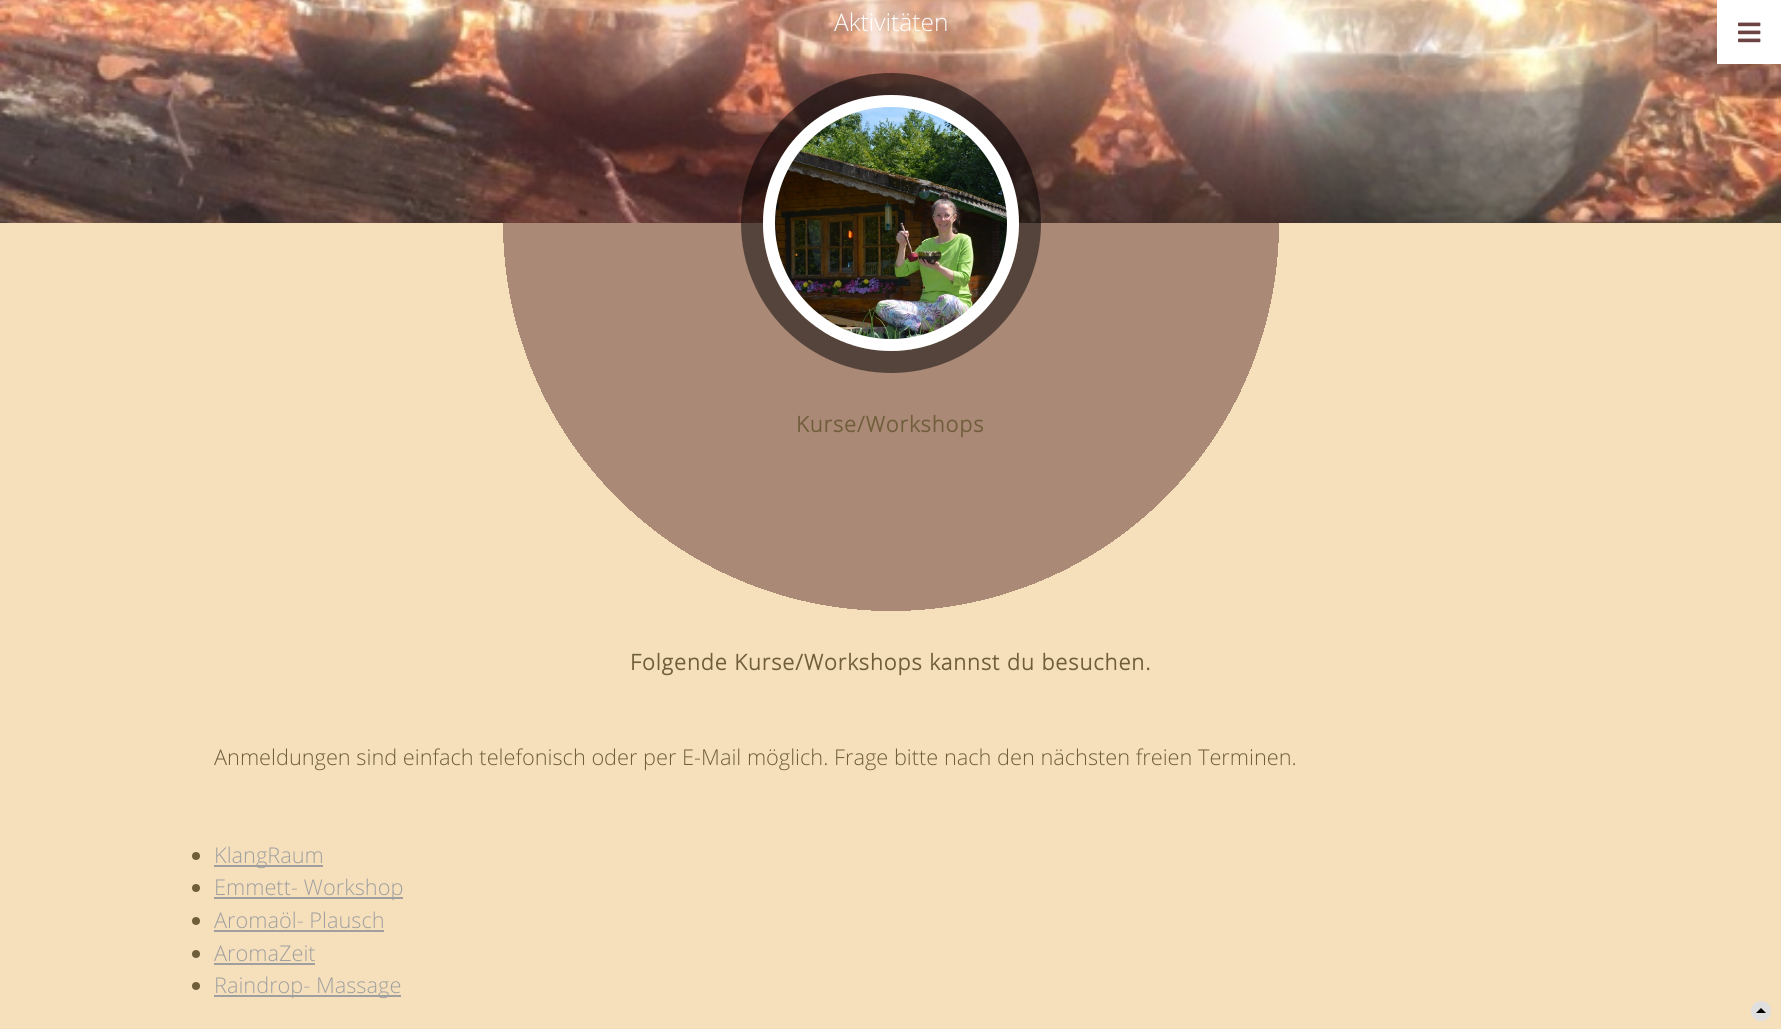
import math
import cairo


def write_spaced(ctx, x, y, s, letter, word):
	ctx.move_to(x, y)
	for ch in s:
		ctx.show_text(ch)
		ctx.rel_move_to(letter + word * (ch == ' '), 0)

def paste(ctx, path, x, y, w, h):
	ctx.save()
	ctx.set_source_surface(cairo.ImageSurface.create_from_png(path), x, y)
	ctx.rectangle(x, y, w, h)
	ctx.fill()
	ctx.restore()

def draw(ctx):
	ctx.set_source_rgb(1, 1, 1)
	ctx.paint()
	paste(ctx, 'media/1.png', 0, 0, 1781, 223)
	ctx.select_font_face('Open Sans Light')
	ctx.set_font_size(24.5)
	ctx.set_source_rgb(1, 1, 1)
	ctx.move_to(834, 31)
	ctx.show_text('Aktivitäten')
	gradient = cairo.RadialGradient(891, 223, 0, 891, 223, 1338)
	gradient.add_color_stop_rgba(0.29, 0.671, 0.537, 0.467, 1)
	gradient.add_color_stop_rgba(0.29, 0.965, 0.878, 0.737, 1)
	ctx.set_source(gradient)
	ctx.rectangle(0, 223, 1781, 806)
	ctx.fill()
	ctx.arc(891, 223, 139, 0, 2 * math.pi)
	ctx.set_source_rgba(0, 0, 0, 0.5)
	ctx.set_line_width(22)
	ctx.stroke()
	paste(ctx, 'media/2.png', 775, 107, 232, 244)
	ctx.arc(891, 223, 122, 0, 2 * math.pi)
	ctx.set_source_rgb(1, 1, 1)
	ctx.set_line_width(12)
	ctx.stroke()
	ctx.rectangle(1717, 0, 64, 64)
	ctx.fill()
	paste(ctx, 'media/3.png', 1738, 22, 23, 21)
	ctx.select_font_face('Open Sans', cairo.FONT_SLANT_NORMAL, cairo.FONT_WEIGHT_BOLD)
	ctx.set_font_size(21.75)
	ctx.set_source_rgb(0.439, 0.369, 0.231)
	write_spaced(ctx, 796, 432, 'Kurse/Workshops', 1, 0)
	write_spaced(ctx, 630, 670, 'Folgende Kurse/Workshops kannst du besuchen.', 1, 0)
	ctx.select_font_face('Open Sans Light')
	ctx.move_to(214, 765)
	ctx.show_text('Anmeldungen sind einfach telefonisch oder per E-Mail möglich. Frage bitte nach den nächsten freien Terminen.')
	ctx.new_path()
	ctx.arc(196, 856, 4, 0, 2 * math.pi)
	ctx.fill()
	ctx.set_source_rgb(0.624, 0.624, 0.624)
	ctx.rectangle(214, 865, 109, 2)
	ctx.fill()
	ctx.move_to(214, 863)
	ctx.show_text('KlangRaum')
	ctx.set_source_rgb(0.439, 0.369, 0.231)
	ctx.new_path()
	ctx.arc(196, 888, 4, 0, 2 * math.pi)
	ctx.fill()
	ctx.set_source_rgb(0.624, 0.624, 0.624)
	ctx.rectangle(214, 897, 189, 2)
	ctx.fill()
	ctx.move_to(214, 895)
	ctx.show_text('Emmett- Workshop')
	ctx.set_source_rgb(0.439, 0.369, 0.231)
	ctx.new_path()
	ctx.arc(196, 921, 4, 0, 2 * math.pi)
	ctx.fill()
	ctx.set_source_rgb(0.624, 0.624, 0.624)
	ctx.move_to(214, 928)
	ctx.show_text('Aromaöl- Plausch')
	ctx.rectangle(214, 930, 170, 2)
	ctx.fill()
	ctx.set_source_rgb(0.439, 0.369, 0.231)
	ctx.arc(196, 954, 4, 0, 2 * math.pi)
	ctx.fill()
	ctx.set_source_rgb(0.624, 0.624, 0.624)
	ctx.move_to(214, 961)
	ctx.show_text('AromaZeit')
	ctx.rectangle(214, 963, 101, 2)
	ctx.fill()
	ctx.set_source_rgb(0.439, 0.369, 0.231)
	ctx.arc(196, 986, 4, 0, 2 * math.pi)
	ctx.fill()
	ctx.set_source_rgb(0.624, 0.624, 0.624)
	ctx.rectangle(214, 995, 187, 2)
	ctx.fill()
	ctx.move_to(214, 993)
	ctx.show_text('Raindrop- Massage')
	ctx.set_source_rgb(0.875, 0.875, 0.875)
	ctx.new_path()
	ctx.arc(1761, 1011, 10, 0, 2 * math.pi)
	ctx.fill()
	ctx.set_source_rgb(0, 0, 0)
	ctx.new_path()
	ctx.move_to(1766, 1013)
	ctx.line_to(1756, 1013)
	ctx.line_to(1761, 1008)
	ctx.close_path()
	ctx.fill()


surface = cairo.ImageSurface(cairo.FORMAT_RGB24, 1781, 1029)
ctx = cairo.Context(surface)
options = cairo.FontOptions()
options.set_hint_metrics(cairo.HINT_METRICS_OFF)
options.set_hint_style(cairo.HINT_STYLE_NONE)
ctx.set_font_options(options)
ctx.set_miter_limit(4)
draw(ctx)
surface.write_to_png('image.png')
